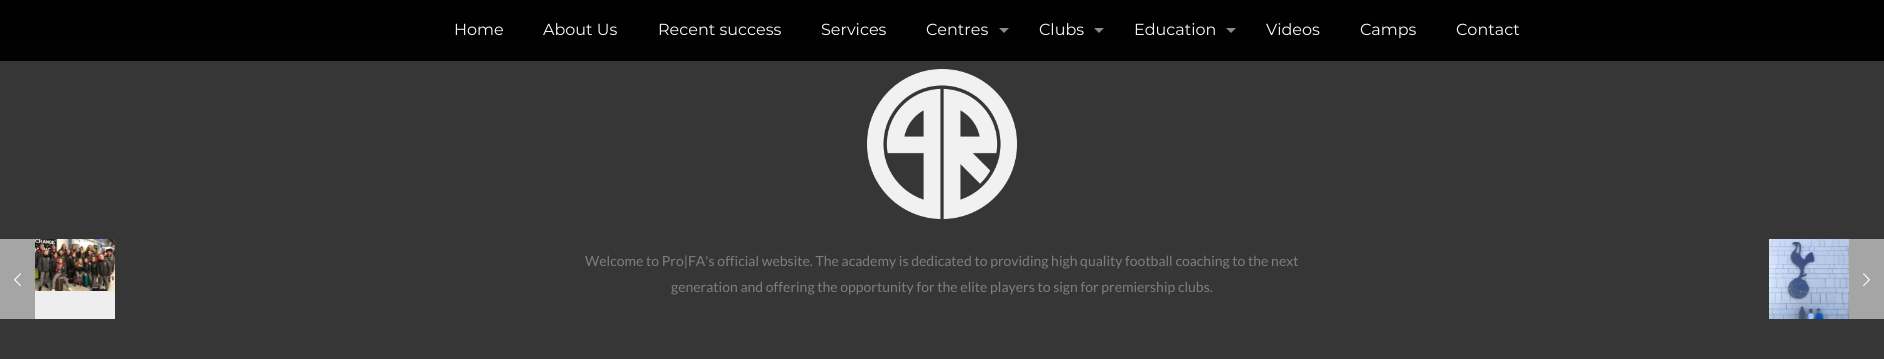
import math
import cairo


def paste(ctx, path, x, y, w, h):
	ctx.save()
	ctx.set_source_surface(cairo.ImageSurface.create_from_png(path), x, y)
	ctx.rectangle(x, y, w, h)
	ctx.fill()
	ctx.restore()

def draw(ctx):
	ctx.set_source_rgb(0.212, 0.212, 0.212)
	ctx.paint()
	ctx.set_source_rgb(0.647, 0.647, 0.647)
	ctx.rectangle(0, 239, 35, 80)
	ctx.fill()
	paste(ctx, 'media/1.png', 14, 273, 7, 14)
	ctx.set_source_rgb(0.933, 0.933, 0.933)
	ctx.rectangle(35, 239, 80, 80)
	ctx.fill()
	paste(ctx, 'media/2.png', 35, 239, 80, 52)
	paste(ctx, 'media/3.png', 0, 0, 1884, 46)
	ctx.select_font_face('Montserrat')
	ctx.set_font_size(16)
	ctx.set_source_rgb(0.976, 0.976, 0.976)
	for x, y, s in [
		(454, 35, 'Home'),
		(543, 35, 'About Us'),
		(658, 35, 'Recent success'),
		(821, 35, 'Services'),
		(926, 35, 'Centres'),
	]:
		ctx.move_to(x, y)
		ctx.show_text(s)
	ctx.set_source_rgb(0.545, 0.545, 0.545)
	ctx.new_path()
	ctx.move_to(999, 28)
	ctx.line_to(1009, 28)
	ctx.line_to(1004, 33)
	ctx.close_path()
	ctx.fill()
	ctx.set_source_rgb(0.976, 0.976, 0.976)
	ctx.move_to(1039, 35)
	ctx.show_text('Clubs')
	ctx.set_source_rgb(0.545, 0.545, 0.545)
	ctx.new_path()
	ctx.move_to(1094, 28)
	ctx.line_to(1104, 28)
	ctx.line_to(1099, 33)
	ctx.close_path()
	ctx.fill()
	ctx.set_source_rgb(0.976, 0.976, 0.976)
	ctx.move_to(1134, 35)
	ctx.show_text('Education')
	ctx.set_source_rgb(0.545, 0.545, 0.545)
	ctx.new_path()
	ctx.move_to(1226, 28)
	ctx.line_to(1236, 28)
	ctx.line_to(1231, 33)
	ctx.close_path()
	ctx.fill()
	ctx.set_source_rgb(0.976, 0.976, 0.976)
	for x, y, s in [
		(1266, 35, 'Videos'),
		(1360, 35, 'Camps'),
		(1456, 35, 'Contact'),
	]:
		ctx.move_to(x, y)
		ctx.show_text(s)
	ctx.set_source_rgb(0.008, 0.008, 0.008)
	ctx.rectangle(0, 46, 1884, 15)
	ctx.fill()
	paste(ctx, 'media/4.png', 867, 69, 150, 150)
	ctx.select_font_face('Lato')
	ctx.set_font_size(14)
	ctx.set_source_rgb(0.494, 0.494, 0.494)
	ctx.move_to(585, 266)
	ctx.show_text('Welcome to Pro|FA\'s official website. The academy is dedicated to providing high quality football coaching to the next')
	ctx.move_to(671, 292)
	ctx.show_text('generation and offering the opportunity for the elite players to sign for premiership clubs.')
	paste(ctx, 'media/7.png', 1848, 239, 1, 52)
	paste(ctx, 'media/5.png', 1769, 239, 80, 80)
	ctx.set_source_rgb(0.647, 0.647, 0.647)
	ctx.rectangle(1849, 239, 35, 80)
	ctx.fill()
	paste(ctx, 'media/6.png', 1863, 273, 7, 14)


surface = cairo.ImageSurface(cairo.FORMAT_RGB24, 1884, 359)
ctx = cairo.Context(surface)
options = cairo.FontOptions()
options.set_hint_metrics(cairo.HINT_METRICS_OFF)
options.set_hint_style(cairo.HINT_STYLE_NONE)
ctx.set_font_options(options)
ctx.set_miter_limit(4)
draw(ctx)
surface.write_to_png('image.png')
